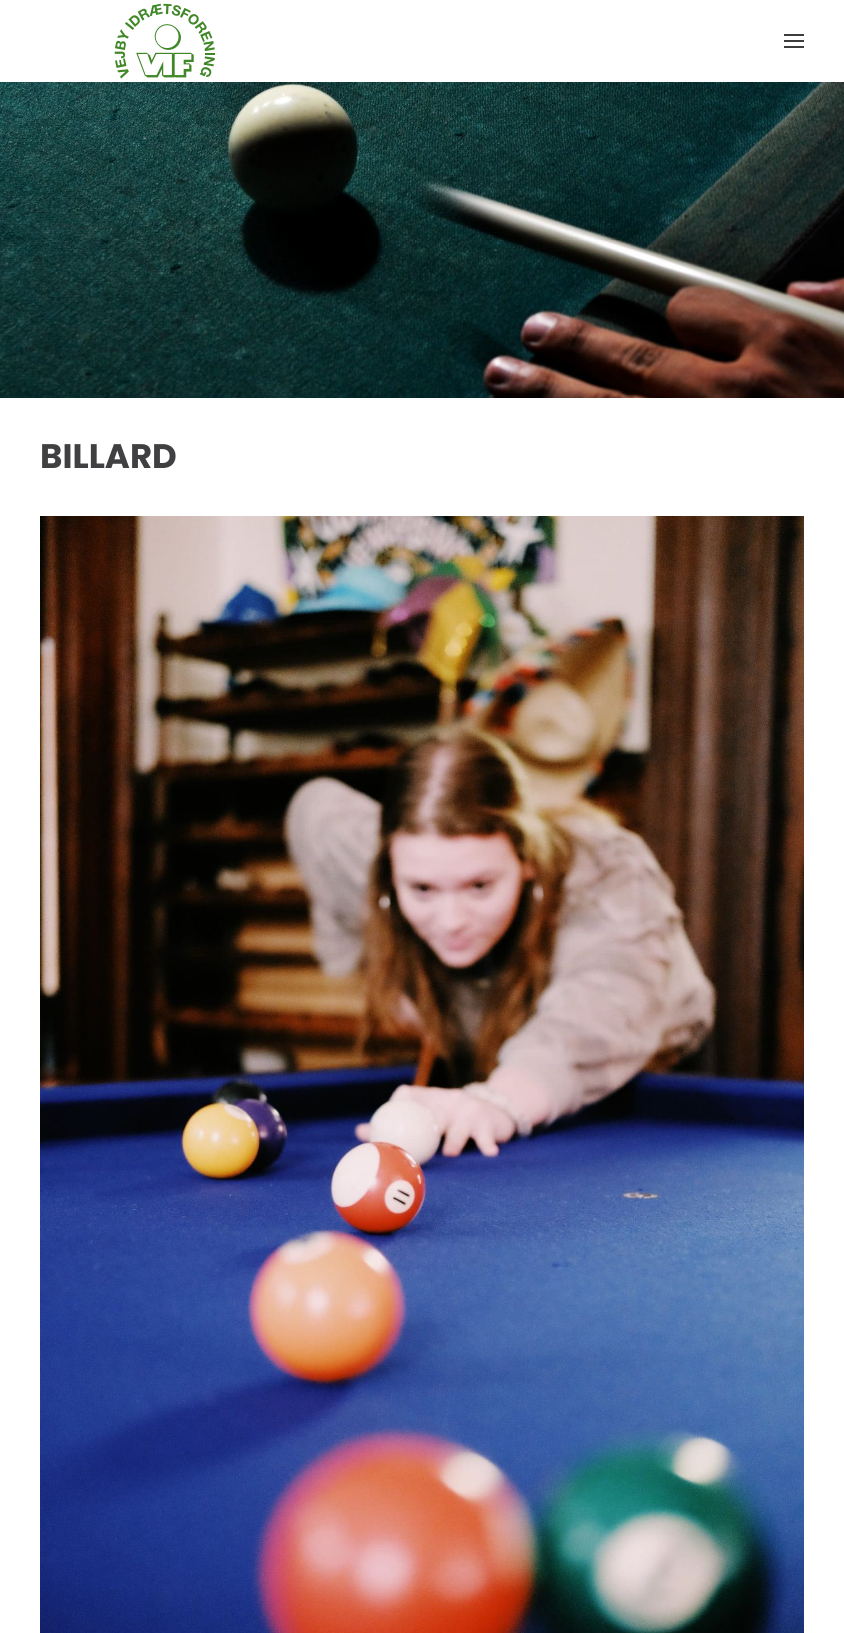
import math
import cairo


def paste(ctx, path, x, y, w, h):
	ctx.save()
	ctx.set_source_surface(cairo.ImageSurface.create_from_png(path), x, y)
	ctx.rectangle(x, y, w, h)
	ctx.fill()
	ctx.restore()

def draw(ctx):
	ctx.set_source_rgb(1, 1, 1)
	ctx.paint()
	paste(ctx, 'media/1.png', 114, 3, 101, 76)
	ctx.set_source_rgb(0.239, 0.239, 0.239)
	ctx.rectangle(784, 34, 20, 2)
	ctx.rectangle(784, 40, 20, 2)
	ctx.rectangle(784, 46, 20, 2)
	ctx.fill()
	paste(ctx, 'media/2.png', 0, 82, 844, 316)
	ctx.select_font_face('Poppins', cairo.FONT_SLANT_NORMAL, cairo.FONT_WEIGHT_BOLD)
	ctx.set_font_size(34)
	ctx.set_source_rgb(0.251, 0.251, 0.259)
	ctx.move_to(40, 468)
	ctx.show_text('BILLARD')
	paste(ctx, 'media/3.png', 40, 516, 764, 1117)


surface = cairo.ImageSurface(cairo.FORMAT_RGB24, 844, 1633)
ctx = cairo.Context(surface)
options = cairo.FontOptions()
options.set_hint_metrics(cairo.HINT_METRICS_OFF)
options.set_hint_style(cairo.HINT_STYLE_NONE)
ctx.set_font_options(options)
ctx.set_miter_limit(4)
draw(ctx)
surface.write_to_png('image.png')
